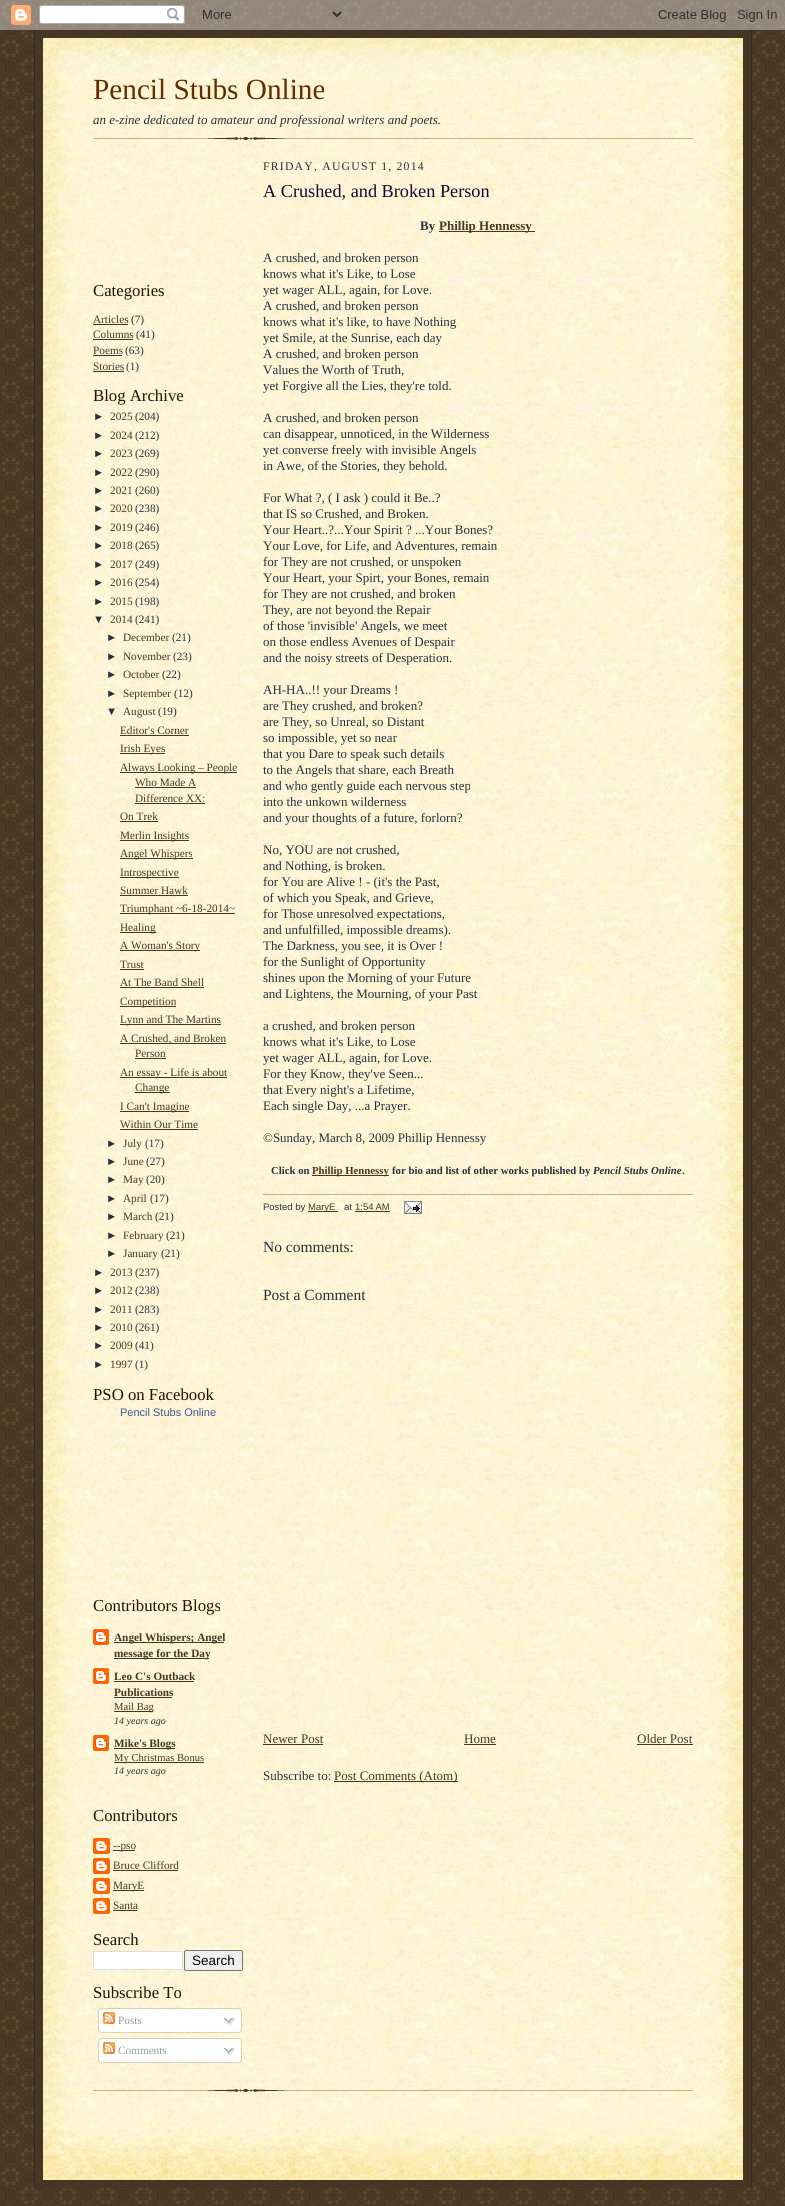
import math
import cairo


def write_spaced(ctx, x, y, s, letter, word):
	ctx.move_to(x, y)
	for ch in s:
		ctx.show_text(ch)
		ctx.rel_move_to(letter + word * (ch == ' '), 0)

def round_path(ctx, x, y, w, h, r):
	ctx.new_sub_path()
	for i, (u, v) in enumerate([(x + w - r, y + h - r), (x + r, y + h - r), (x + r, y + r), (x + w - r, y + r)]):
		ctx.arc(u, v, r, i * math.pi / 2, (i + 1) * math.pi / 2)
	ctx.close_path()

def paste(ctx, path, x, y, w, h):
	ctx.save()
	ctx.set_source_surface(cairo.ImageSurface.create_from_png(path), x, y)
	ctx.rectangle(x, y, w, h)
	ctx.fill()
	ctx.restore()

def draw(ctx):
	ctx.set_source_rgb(1, 1, 1)
	ctx.paint()
	paste(ctx, 'media/1.png', 0, 0, 785, 2206)
	paste(ctx, 'media/2.png', 0, 0, 785, 30)
	ctx.set_source_rgb(0.278, 0.212, 0.141)
	ctx.rectangle(35, 30, 716, 2158)
	ctx.fill()
	ctx.set_source_rgb(0.2, 0.165, 0.141)
	ctx.rectangle(751, 30, 1, 2158)
	ctx.rectangle(34, 30, 1, 2158)
	ctx.fill()
	paste(ctx, 'media/3.png', 43, 38, 700, 35)
	paste(ctx, 'media/4.png', 43, 73, 700, 2026)
	paste(ctx, 'media/5.png', 93, 137, 600, 3)
	ctx.select_font_face('Liberation Serif')
	ctx.set_font_size(29.25)
	ctx.set_source_rgb(0.38, 0.18, 0)
	ctx.move_to(93, 99)
	ctx.show_text('Pencil Stubs Online')
	ctx.select_font_face('Liberation Serif', cairo.FONT_SLANT_ITALIC)
	ctx.set_font_size(13)
	ctx.set_source_rgb(0.161, 0.188, 0.231)
	ctx.move_to(93, 124)
	ctx.show_text('an e-zine dedicated to amateur and professional writers and poets.')
	ctx.select_font_face('Liberation Serif')
	ctx.set_font_size(16.75)
	ctx.set_source_rgb(0.129, 0.067, 0.016)
	ctx.move_to(93, 296)
	ctx.show_text('Categories')
	ctx.set_font_size(11.25)
	ctx.set_source_rgb(0.278, 0.212, 0.141)
	ctx.move_to(93, 323)
	ctx.show_text('Articles')
	ctx.rectangle(93, 324, 35, 1)
	ctx.fill()
	ctx.set_source_rgb(0.161, 0.188, 0.231)
	ctx.move_to(131, 323)
	ctx.show_text('(7)')
	ctx.set_source_rgb(0.278, 0.212, 0.141)
	ctx.move_to(93, 338)
	ctx.show_text('Columns')
	ctx.rectangle(93, 339, 40, 1)
	ctx.fill()
	ctx.set_source_rgb(0.161, 0.188, 0.231)
	ctx.move_to(136, 338)
	ctx.show_text('(41)')
	ctx.set_source_rgb(0.278, 0.212, 0.141)
	ctx.move_to(93, 354)
	ctx.show_text('Poems')
	ctx.rectangle(93, 355, 29, 1)
	ctx.fill()
	ctx.set_source_rgb(0.161, 0.188, 0.231)
	ctx.move_to(125, 354)
	ctx.show_text('(63)')
	ctx.set_source_rgb(0.278, 0.212, 0.141)
	ctx.move_to(93, 370)
	ctx.show_text('Stories')
	ctx.rectangle(93, 371, 31, 1)
	ctx.fill()
	ctx.set_source_rgb(0.161, 0.188, 0.231)
	ctx.move_to(126, 370)
	ctx.show_text('(1)')
	ctx.set_font_size(16.75)
	ctx.set_source_rgb(0.129, 0.067, 0.016)
	ctx.move_to(93, 401)
	ctx.show_text('Blog Archive')
	ctx.select_font_face('Liberation Sans')
	ctx.set_font_size(11.25)
	ctx.set_source_rgb(0.161, 0.188, 0.231)
	ctx.move_to(93, 420)
	ctx.show_text('►')
	ctx.select_font_face('Liberation Serif')
	ctx.set_source_rgb(0.278, 0.212, 0.141)
	ctx.move_to(110, 420)
	ctx.show_text('2025')
	ctx.set_source_rgb(0.161, 0.188, 0.231)
	ctx.move_to(135, 420)
	ctx.show_text('(204)')
	ctx.select_font_face('Liberation Sans')
	ctx.move_to(93, 439)
	ctx.show_text('►')
	ctx.select_font_face('Liberation Serif')
	ctx.set_source_rgb(0.278, 0.212, 0.141)
	ctx.move_to(110, 439)
	ctx.show_text('2024')
	ctx.set_source_rgb(0.161, 0.188, 0.231)
	ctx.move_to(135, 439)
	ctx.show_text('(212)')
	ctx.select_font_face('Liberation Sans')
	ctx.move_to(93, 457)
	ctx.show_text('►')
	ctx.select_font_face('Liberation Serif')
	ctx.set_source_rgb(0.278, 0.212, 0.141)
	ctx.move_to(110, 457)
	ctx.show_text('2023')
	ctx.set_source_rgb(0.161, 0.188, 0.231)
	ctx.move_to(135, 457)
	ctx.show_text('(269)')
	ctx.select_font_face('Liberation Sans')
	ctx.move_to(93, 476)
	ctx.show_text('►')
	ctx.select_font_face('Liberation Serif')
	ctx.set_source_rgb(0.278, 0.212, 0.141)
	ctx.move_to(110, 476)
	ctx.show_text('2022')
	ctx.set_source_rgb(0.161, 0.188, 0.231)
	ctx.move_to(135, 476)
	ctx.show_text('(290)')
	ctx.select_font_face('Liberation Sans')
	ctx.move_to(93, 494)
	ctx.show_text('►')
	ctx.select_font_face('Liberation Serif')
	ctx.set_source_rgb(0.278, 0.212, 0.141)
	ctx.move_to(110, 494)
	ctx.show_text('2021')
	ctx.set_source_rgb(0.161, 0.188, 0.231)
	ctx.move_to(135, 494)
	ctx.show_text('(260)')
	ctx.select_font_face('Liberation Sans')
	ctx.move_to(93, 512)
	ctx.show_text('►')
	ctx.select_font_face('Liberation Serif')
	ctx.set_source_rgb(0.278, 0.212, 0.141)
	ctx.move_to(110, 512)
	ctx.show_text('2020')
	ctx.set_source_rgb(0.161, 0.188, 0.231)
	ctx.move_to(135, 512)
	ctx.show_text('(238)')
	ctx.select_font_face('Liberation Sans')
	ctx.move_to(93, 531)
	ctx.show_text('►')
	ctx.select_font_face('Liberation Serif')
	ctx.set_source_rgb(0.278, 0.212, 0.141)
	ctx.move_to(110, 531)
	ctx.show_text('2019')
	ctx.set_source_rgb(0.161, 0.188, 0.231)
	ctx.move_to(135, 531)
	ctx.show_text('(246)')
	ctx.select_font_face('Liberation Sans')
	ctx.move_to(93, 549)
	ctx.show_text('►')
	ctx.select_font_face('Liberation Serif')
	ctx.set_source_rgb(0.278, 0.212, 0.141)
	ctx.move_to(110, 549)
	ctx.show_text('2018')
	ctx.set_source_rgb(0.161, 0.188, 0.231)
	ctx.move_to(135, 549)
	ctx.show_text('(265)')
	ctx.select_font_face('Liberation Sans')
	ctx.move_to(93, 568)
	ctx.show_text('►')
	ctx.select_font_face('Liberation Serif')
	ctx.set_source_rgb(0.278, 0.212, 0.141)
	ctx.move_to(110, 568)
	ctx.show_text('2017')
	ctx.set_source_rgb(0.161, 0.188, 0.231)
	ctx.move_to(135, 568)
	ctx.show_text('(249)')
	ctx.select_font_face('Liberation Sans')
	ctx.move_to(93, 586)
	ctx.show_text('►')
	ctx.select_font_face('Liberation Serif')
	ctx.set_source_rgb(0.278, 0.212, 0.141)
	ctx.move_to(110, 586)
	ctx.show_text('2016')
	ctx.set_source_rgb(0.161, 0.188, 0.231)
	ctx.move_to(135, 586)
	ctx.show_text('(254)')
	ctx.select_font_face('Liberation Sans')
	ctx.move_to(93, 605)
	ctx.show_text('►')
	ctx.select_font_face('Liberation Serif')
	ctx.set_source_rgb(0.278, 0.212, 0.141)
	ctx.move_to(110, 605)
	ctx.show_text('2015')
	ctx.set_source_rgb(0.161, 0.188, 0.231)
	ctx.move_to(135, 605)
	ctx.show_text('(198)')
	ctx.select_font_face('Liberation Sans')
	ctx.move_to(93, 623)
	ctx.show_text('▼')
	ctx.select_font_face('Liberation Serif')
	ctx.set_source_rgb(0.278, 0.212, 0.141)
	ctx.move_to(110, 623)
	ctx.show_text('2014')
	ctx.set_source_rgb(0.161, 0.188, 0.231)
	ctx.move_to(135, 623)
	ctx.show_text('(241)')
	ctx.select_font_face('Liberation Sans')
	ctx.move_to(106, 641)
	ctx.show_text('►')
	ctx.select_font_face('Liberation Serif')
	ctx.set_source_rgb(0.278, 0.212, 0.141)
	ctx.move_to(123, 641)
	ctx.show_text('December')
	ctx.set_source_rgb(0.161, 0.188, 0.231)
	ctx.move_to(172, 641)
	ctx.show_text('(21)')
	ctx.select_font_face('Liberation Sans')
	ctx.move_to(106, 660)
	ctx.show_text('►')
	ctx.select_font_face('Liberation Serif')
	ctx.set_source_rgb(0.278, 0.212, 0.141)
	ctx.move_to(123, 660)
	ctx.show_text('November')
	ctx.set_source_rgb(0.161, 0.188, 0.231)
	ctx.move_to(173, 660)
	ctx.show_text('(23)')
	ctx.select_font_face('Liberation Sans')
	ctx.move_to(106, 678)
	ctx.show_text('►')
	ctx.select_font_face('Liberation Serif')
	ctx.set_source_rgb(0.278, 0.212, 0.141)
	ctx.move_to(123, 678)
	ctx.show_text('October')
	ctx.set_source_rgb(0.161, 0.188, 0.231)
	ctx.move_to(162, 678)
	ctx.show_text('(22)')
	ctx.select_font_face('Liberation Sans')
	ctx.move_to(106, 697)
	ctx.show_text('►')
	ctx.select_font_face('Liberation Serif')
	ctx.set_source_rgb(0.278, 0.212, 0.141)
	ctx.move_to(123, 697)
	ctx.show_text('September')
	ctx.set_source_rgb(0.161, 0.188, 0.231)
	ctx.move_to(174, 697)
	ctx.show_text('(12)')
	ctx.select_font_face('Liberation Sans')
	ctx.move_to(106, 715)
	ctx.show_text('▼')
	ctx.select_font_face('Liberation Serif')
	ctx.set_source_rgb(0.278, 0.212, 0.141)
	ctx.move_to(123, 715)
	ctx.show_text('August')
	ctx.set_source_rgb(0.161, 0.188, 0.231)
	ctx.move_to(158, 715)
	ctx.show_text('(19)')
	ctx.set_source_rgb(0.278, 0.212, 0.141)
	ctx.move_to(120, 734)
	ctx.show_text('Editor\'s Corner')
	ctx.rectangle(120, 735, 69, 1)
	ctx.fill()
	ctx.rectangle(120, 753, 45, 1)
	ctx.fill()
	ctx.move_to(120, 752)
	ctx.show_text('Irish Eyes')
	ctx.rectangle(120, 772, 117, 1)
	ctx.fill()
	ctx.move_to(120, 771)
	ctx.show_text('Always Looking – People')
	ctx.move_to(135, 786)
	ctx.show_text('Who Made A')
	ctx.rectangle(135, 787, 61, 1)
	ctx.fill()
	ctx.move_to(135, 802)
	ctx.show_text('Difference XX:')
	ctx.rectangle(135, 803, 70, 1)
	ctx.fill()
	ctx.move_to(120, 820)
	ctx.show_text('On Trek')
	ctx.rectangle(120, 821, 38, 1)
	ctx.fill()
	ctx.rectangle(120, 840, 69, 1)
	ctx.fill()
	ctx.move_to(120, 839)
	ctx.show_text('Merlin Insights')
	ctx.rectangle(120, 858, 73, 1)
	ctx.fill()
	ctx.move_to(120, 857)
	ctx.show_text('Angel Whispers')
	ctx.rectangle(120, 877, 59, 1)
	ctx.fill()
	ctx.move_to(120, 876)
	ctx.show_text('Introspective')
	ctx.move_to(120, 894)
	ctx.show_text('Summer Hawk')
	ctx.rectangle(120, 895, 68, 1)
	ctx.fill()
	ctx.rectangle(120, 913, 115, 1)
	ctx.fill()
	ctx.move_to(120, 912)
	ctx.show_text('Triumphant ~6-18-2014~')
	ctx.rectangle(120, 932, 36, 1)
	ctx.fill()
	ctx.move_to(120, 931)
	ctx.show_text('Healing')
	ctx.rectangle(120, 950, 80, 1)
	ctx.fill()
	ctx.move_to(120, 949)
	ctx.show_text('A Woman\'s Story')
	ctx.move_to(120, 968)
	ctx.show_text('Trust')
	ctx.rectangle(120, 969, 24, 1)
	ctx.fill()
	ctx.move_to(120, 986)
	ctx.show_text('At The Band Shell')
	ctx.rectangle(120, 987, 84, 1)
	ctx.fill()
	ctx.rectangle(120, 1006, 56, 1)
	ctx.fill()
	ctx.move_to(120, 1005)
	ctx.show_text('Competition')
	ctx.rectangle(120, 1024, 101, 1)
	ctx.fill()
	ctx.move_to(120, 1023)
	ctx.show_text('Lynn and The Martins')
	ctx.rectangle(120, 1043, 106, 1)
	ctx.fill()
	ctx.move_to(120, 1042)
	ctx.show_text('A Crushed, and Broken')
	ctx.move_to(135, 1057)
	ctx.show_text('Person')
	ctx.rectangle(135, 1058, 31, 1)
	ctx.fill()
	ctx.rectangle(120, 1077, 107, 1)
	ctx.fill()
	ctx.move_to(120, 1076)
	ctx.show_text('An essay - Life is about')
	ctx.rectangle(135, 1092, 35, 1)
	ctx.fill()
	ctx.move_to(135, 1091)
	ctx.show_text('Change')
	ctx.rectangle(120, 1111, 69, 1)
	ctx.fill()
	ctx.move_to(120, 1110)
	ctx.show_text('I Can\'t Imagine')
	ctx.move_to(120, 1128)
	ctx.show_text('Within Our Time')
	ctx.rectangle(120, 1129, 78, 1)
	ctx.fill()
	ctx.select_font_face('Liberation Sans')
	ctx.set_source_rgb(0.161, 0.188, 0.231)
	ctx.move_to(106, 1147)
	ctx.show_text('►')
	ctx.select_font_face('Liberation Serif')
	ctx.set_source_rgb(0.278, 0.212, 0.141)
	ctx.move_to(123, 1147)
	ctx.show_text('July')
	ctx.set_source_rgb(0.161, 0.188, 0.231)
	ctx.move_to(145, 1147)
	ctx.show_text('(17)')
	ctx.select_font_face('Liberation Sans')
	ctx.move_to(106, 1165)
	ctx.show_text('►')
	ctx.select_font_face('Liberation Serif')
	ctx.set_source_rgb(0.278, 0.212, 0.141)
	ctx.move_to(123, 1165)
	ctx.show_text('June')
	ctx.set_source_rgb(0.161, 0.188, 0.231)
	ctx.move_to(146, 1165)
	ctx.show_text('(27)')
	ctx.select_font_face('Liberation Sans')
	ctx.move_to(106, 1183)
	ctx.show_text('►')
	ctx.select_font_face('Liberation Serif')
	ctx.set_source_rgb(0.278, 0.212, 0.141)
	ctx.move_to(123, 1183)
	ctx.show_text('May')
	ctx.set_source_rgb(0.161, 0.188, 0.231)
	ctx.move_to(146, 1183)
	ctx.show_text('(20)')
	ctx.select_font_face('Liberation Sans')
	ctx.move_to(106, 1202)
	ctx.show_text('►')
	ctx.select_font_face('Liberation Serif')
	ctx.set_source_rgb(0.278, 0.212, 0.141)
	ctx.move_to(123, 1202)
	ctx.show_text('April')
	ctx.set_source_rgb(0.161, 0.188, 0.231)
	ctx.move_to(150, 1202)
	ctx.show_text('(17)')
	ctx.select_font_face('Liberation Sans')
	ctx.move_to(106, 1220)
	ctx.show_text('►')
	ctx.select_font_face('Liberation Serif')
	ctx.set_source_rgb(0.278, 0.212, 0.141)
	ctx.move_to(123, 1220)
	ctx.show_text('March')
	ctx.set_source_rgb(0.161, 0.188, 0.231)
	ctx.move_to(155, 1220)
	ctx.show_text('(21)')
	ctx.select_font_face('Liberation Sans')
	ctx.move_to(106, 1239)
	ctx.show_text('►')
	ctx.select_font_face('Liberation Serif')
	ctx.set_source_rgb(0.278, 0.212, 0.141)
	ctx.move_to(123, 1239)
	ctx.show_text('February')
	ctx.set_source_rgb(0.161, 0.188, 0.231)
	ctx.move_to(166, 1239)
	ctx.show_text('(21)')
	ctx.select_font_face('Liberation Sans')
	ctx.move_to(106, 1257)
	ctx.show_text('►')
	ctx.select_font_face('Liberation Serif')
	ctx.set_source_rgb(0.278, 0.212, 0.141)
	ctx.move_to(123, 1257)
	ctx.show_text('January')
	ctx.set_source_rgb(0.161, 0.188, 0.231)
	ctx.move_to(161, 1257)
	ctx.show_text('(21)')
	ctx.select_font_face('Liberation Sans')
	ctx.move_to(93, 1276)
	ctx.show_text('►')
	ctx.select_font_face('Liberation Serif')
	ctx.set_source_rgb(0.278, 0.212, 0.141)
	ctx.move_to(110, 1276)
	ctx.show_text('2013')
	ctx.set_source_rgb(0.161, 0.188, 0.231)
	ctx.move_to(135, 1276)
	ctx.show_text('(237)')
	ctx.select_font_face('Liberation Sans')
	ctx.move_to(93, 1294)
	ctx.show_text('►')
	ctx.select_font_face('Liberation Serif')
	ctx.set_source_rgb(0.278, 0.212, 0.141)
	ctx.move_to(110, 1294)
	ctx.show_text('2012')
	ctx.set_source_rgb(0.161, 0.188, 0.231)
	ctx.move_to(135, 1294)
	ctx.show_text('(238)')
	ctx.select_font_face('Liberation Sans')
	ctx.move_to(93, 1313)
	ctx.show_text('►')
	ctx.select_font_face('Liberation Serif')
	ctx.set_source_rgb(0.278, 0.212, 0.141)
	ctx.move_to(110, 1313)
	ctx.show_text('2011')
	ctx.set_source_rgb(0.161, 0.188, 0.231)
	ctx.move_to(135, 1313)
	ctx.show_text('(283)')
	ctx.select_font_face('Liberation Sans')
	ctx.move_to(93, 1331)
	ctx.show_text('►')
	ctx.select_font_face('Liberation Serif')
	ctx.set_source_rgb(0.278, 0.212, 0.141)
	ctx.move_to(110, 1331)
	ctx.show_text('2010')
	ctx.set_source_rgb(0.161, 0.188, 0.231)
	ctx.move_to(135, 1331)
	ctx.show_text('(261)')
	ctx.select_font_face('Liberation Sans')
	ctx.move_to(93, 1349)
	ctx.show_text('►')
	ctx.select_font_face('Liberation Serif')
	ctx.set_source_rgb(0.278, 0.212, 0.141)
	ctx.move_to(110, 1349)
	ctx.show_text('2009')
	ctx.set_source_rgb(0.161, 0.188, 0.231)
	ctx.move_to(135, 1349)
	ctx.show_text('(41)')
	ctx.select_font_face('Liberation Sans')
	ctx.move_to(93, 1368)
	ctx.show_text('►')
	ctx.select_font_face('Liberation Serif')
	ctx.set_source_rgb(0.278, 0.212, 0.141)
	ctx.move_to(110, 1368)
	ctx.show_text('1997')
	ctx.set_source_rgb(0.161, 0.188, 0.231)
	ctx.move_to(135, 1368)
	ctx.show_text('(1)')
	ctx.set_font_size(16.75)
	ctx.set_source_rgb(0.129, 0.067, 0.016)
	ctx.move_to(93, 1400)
	ctx.show_text('PSO on Facebook')
	ctx.select_font_face('Liberation Sans')
	ctx.set_font_size(11)
	ctx.set_source_rgb(0.231, 0.349, 0.596)
	ctx.move_to(120, 1416)
	ctx.show_text('Pencil Stubs Online')
	ctx.select_font_face('Liberation Serif')
	ctx.set_font_size(16.75)
	ctx.set_source_rgb(0.129, 0.067, 0.016)
	ctx.move_to(93, 1611)
	ctx.show_text('Contributors Blogs')
	paste(ctx, 'media/6.png', 93, 1629, 16, 16)
	ctx.set_source_rgb(0.278, 0.212, 0.141)
	ctx.rectangle(114, 1642, 110, 1)
	ctx.fill()
	ctx.select_font_face('Liberation Serif', cairo.FONT_SLANT_NORMAL, cairo.FONT_WEIGHT_BOLD)
	ctx.set_font_size(11.25)
	ctx.move_to(114, 1641)
	ctx.show_text('Angel Whispers; Angel')
	ctx.rectangle(114, 1658, 95, 1)
	ctx.fill()
	ctx.move_to(114, 1657)
	ctx.show_text('message for the Day')
	paste(ctx, 'media/7.png', 93, 1668, 16, 16)
	ctx.move_to(114, 1680)
	ctx.show_text('Leo C\'s Outback')
	ctx.rectangle(114, 1681, 80, 1)
	ctx.fill()
	ctx.move_to(114, 1696)
	ctx.show_text('Publications')
	ctx.rectangle(114, 1697, 58, 1)
	ctx.fill()
	ctx.rectangle(114, 1711, 39, 1)
	ctx.fill()
	ctx.select_font_face('Liberation Serif')
	ctx.set_font_size(10.6)
	ctx.move_to(114, 1710)
	ctx.show_text('Mail Bag')
	ctx.select_font_face('Liberation Serif', cairo.FONT_SLANT_ITALIC)
	ctx.set_font_size(10)
	ctx.set_source_rgb(0.161, 0.188, 0.231)
	ctx.move_to(114, 1724)
	ctx.show_text('14 years ago')
	paste(ctx, 'media/8.png', 93, 1735, 16, 16)
	ctx.set_source_rgb(0.278, 0.212, 0.141)
	ctx.rectangle(114, 1748, 61, 1)
	ctx.fill()
	ctx.select_font_face('Liberation Serif', cairo.FONT_SLANT_NORMAL, cairo.FONT_WEIGHT_BOLD)
	ctx.set_font_size(11.25)
	ctx.move_to(114, 1747)
	ctx.show_text('Mike\'s Blogs')
	ctx.rectangle(114, 1762, 90, 1)
	ctx.fill()
	ctx.select_font_face('Liberation Serif')
	ctx.set_font_size(10.6)
	ctx.move_to(114, 1761)
	ctx.show_text('My Christmas Bonus')
	ctx.select_font_face('Liberation Serif', cairo.FONT_SLANT_ITALIC)
	ctx.set_font_size(10)
	ctx.set_source_rgb(0.161, 0.188, 0.231)
	ctx.move_to(114, 1774)
	ctx.show_text('14 years ago')
	ctx.select_font_face('Liberation Serif')
	ctx.set_font_size(16.75)
	ctx.set_source_rgb(0.129, 0.067, 0.016)
	ctx.move_to(93, 1821)
	ctx.show_text('Contributors')
	paste(ctx, 'media/9.png', 93, 1838, 17, 16)
	ctx.set_source_rgb(0.278, 0.212, 0.141)
	ctx.rectangle(113, 1850, 22, 1)
	ctx.fill()
	ctx.set_font_size(11.25)
	ctx.move_to(113, 1849)
	ctx.show_text('--pso')
	paste(ctx, 'media/10.png', 93, 1858, 17, 16)
	ctx.move_to(113, 1869)
	ctx.show_text('Bruce Clifford')
	ctx.rectangle(113, 1870, 65, 1)
	ctx.fill()
	paste(ctx, 'media/11.png', 93, 1878, 17, 16)
	ctx.rectangle(113, 1890, 31, 1)
	ctx.fill()
	ctx.move_to(113, 1889)
	ctx.show_text('MaryE')
	paste(ctx, 'media/12.png', 93, 1898, 17, 16)
	ctx.move_to(113, 1909)
	ctx.show_text('Santa')
	ctx.rectangle(113, 1910, 24, 1)
	ctx.fill()
	ctx.set_font_size(16.75)
	ctx.set_source_rgb(0.129, 0.067, 0.016)
	ctx.move_to(93, 1945)
	ctx.show_text('Search')
	ctx.set_source_rgb(1, 1, 1)
	ctx.rectangle(93.5, 1951.5, 89, 18)
	ctx.fill_preserve()
	ctx.set_source_rgb(0.867, 0.867, 0.867)
	ctx.set_line_width(1)
	ctx.stroke()
	ctx.set_source_rgb(0.937, 0.937, 0.937)
	round_path(ctx, 184.5, 1950.5, 58, 20, 1.5)
	ctx.fill_preserve()
	ctx.set_source_rgb(0.463, 0.463, 0.463)
	ctx.stroke()
	ctx.select_font_face('Liberation Sans')
	ctx.set_font_size(13.5)
	ctx.set_source_rgb(0, 0, 0)
	ctx.move_to(192, 1965)
	ctx.show_text('Search')
	ctx.select_font_face('Liberation Serif')
	ctx.set_font_size(16.75)
	ctx.set_source_rgb(0.129, 0.067, 0.016)
	ctx.move_to(93, 1998)
	ctx.show_text('Subscribe To')
	paste(ctx, 'media/13.png', 98, 2008, 144, 22)
	paste(ctx, 'media/14.png', 103, 2012, 12, 12)
	ctx.set_font_size(11.25)
	ctx.set_source_rgb(0.6, 0.6, 0.6)
	ctx.move_to(118, 2024)
	ctx.show_text('Posts')
	paste(ctx, 'media/15.png', 223, 2017, 13, 9)
	paste(ctx, 'media/16.png', 98, 2030, 144, 3)
	paste(ctx, 'media/17.png', 98, 2038, 144, 22)
	paste(ctx, 'media/14.png', 103, 2042, 12, 12)
	ctx.move_to(118, 2054)
	ctx.show_text('Comments')
	paste(ctx, 'media/15.png', 223, 2047, 13, 9)
	paste(ctx, 'media/18.png', 98, 2060, 144, 3)
	ctx.set_font_size(11.75)
	ctx.set_source_rgb(0.161, 0.188, 0.231)
	write_spaced(ctx, 263, 170, 'FRIDAY, AUGUST 1, 2014', 1.2, 0)
	ctx.set_font_size(18.25)
	ctx.set_source_rgb(0.106, 0.016, 0.192)
	ctx.move_to(263, 197)
	ctx.show_text('A Crushed, and Broken Person')
	ctx.select_font_face('Liberation Serif', cairo.FONT_SLANT_NORMAL, cairo.FONT_WEIGHT_BOLD)
	ctx.set_font_size(13)
	ctx.set_source_rgb(0.161, 0.188, 0.231)
	ctx.move_to(420, 230)
	ctx.show_text('By')
	ctx.set_source_rgb(0.278, 0.212, 0.141)
	ctx.rectangle(439, 231, 96, 1)
	ctx.fill()
	ctx.move_to(439, 230)
	ctx.show_text('Phillip Hennessy')
	ctx.select_font_face('Liberation Serif')
	ctx.set_source_rgb(0.161, 0.188, 0.231)
	ctx.move_to(263, 262)
	ctx.show_text('A crushed, and broken person')
	ctx.move_to(263, 278)
	ctx.show_text('knows what it\'s Like, to Lose')
	ctx.save()
	ctx.rectangle(263, 152, 430, 1673)
	ctx.clip()
	ctx.move_to(263, 294)
	ctx.show_text('yet wager ALL, again, for Love.')
	ctx.restore()
	ctx.move_to(263, 310)
	ctx.show_text('A crushed, and broken person')
	ctx.move_to(263, 326)
	ctx.show_text('knows what it\'s like, to have Nothing')
	ctx.save()
	ctx.rectangle(263, 152, 430, 1673)
	ctx.clip()
	ctx.move_to(263, 342)
	ctx.show_text('yet Smile, at the Sunrise, each day')
	ctx.restore()
	ctx.move_to(263, 358)
	ctx.show_text('A crushed, and broken person')
	ctx.move_to(263, 374)
	ctx.show_text('Values the Worth of Truth,')
	ctx.save()
	ctx.rectangle(263, 152, 430, 1673)
	ctx.clip()
	ctx.move_to(263, 390)
	ctx.show_text('yet Forgive all the Lies, they\'re told.')
	ctx.restore()
	ctx.move_to(263, 422)
	ctx.show_text('A crushed, and broken person')
	ctx.move_to(263, 438)
	ctx.show_text('can disappear, unnoticed, in the Wilderness')
	ctx.save()
	ctx.rectangle(263, 152, 430, 1673)
	ctx.clip()
	ctx.move_to(263, 454)
	ctx.show_text('yet converse freely with invisible Angels')
	ctx.restore()
	for x, y, s in [
		(263, 470, 'in Awe, of the Stories, they behold.'),
		(263, 502, 'For What ?, ( I ask ) could it Be..?'),
		(263, 518, 'that IS so Crushed, and Broken.'),
		(263, 534, 'Your Heart..?...Your Spirit ? ...Your Bones?'),
		(263, 550, 'Your Love, for Life, and Adventures, remain'),
		(263, 566, 'for They are not crushed, or unspoken'),
		(263, 582, 'Your Heart, your Spirt, your Bones, remain'),
		(263, 598, 'for They are not crushed, and broken'),
	]:
		ctx.move_to(x, y)
		ctx.show_text(s)
	ctx.save()
	ctx.rectangle(263, 152, 430, 1673)
	ctx.clip()
	ctx.move_to(263, 614)
	ctx.show_text('They, are not beyond the Repair')
	ctx.restore()
	for x, y, s in [
		(263, 630, 'of those \'invisible\' Angels, we meet'),
		(263, 646, 'on those endless Avenues of Despair'),
		(263, 662, 'and the noisy streets of Desperation.'),
		(263, 694, 'AH-HA..!! your Dreams !'),
		(263, 710, 'are They crushed, and broken?'),
		(263, 726, 'are They, so Unreal, so Distant'),
		(263, 742, 'so impossible, yet so near'),
		(263, 758, 'that you Dare to speak such details'),
		(263, 774, 'to the Angels that share, each Breath'),
		(263, 790, 'and who gently guide each nervous step'),
		(263, 806, 'into the unkown wilderness'),
		(263, 822, 'and your thoughts of a future, forlorn?'),
		(263, 854, 'No, YOU are not crushed,'),
		(263, 870, 'and Nothing, is broken.'),
		(263, 886, 'for You are Alive ! - (it\'s the Past,'),
		(263, 902, 'of which you Speak, and Grieve,'),
		(263, 918, 'for Those unresolved expectations,'),
		(263, 934, 'and unfulfilled, impossible dreams).'),
	]:
		ctx.move_to(x, y)
		ctx.show_text(s)
	ctx.save()
	ctx.rectangle(263, 152, 430, 1673)
	ctx.clip()
	ctx.move_to(263, 950)
	ctx.show_text('The Darkness, you see, it is Over !')
	ctx.restore()
	for x, y, s in [
		(263, 966, 'for the Sunlight of Opportunity'),
		(263, 982, 'shines upon the Morning of your Future'),
		(263, 998, 'and Lightens, the Mourning, of your Past'),
		(263, 1030, 'a crushed, and broken person'),
		(263, 1046, 'knows what it\'s Like, to Lose'),
	]:
		ctx.move_to(x, y)
		ctx.show_text(s)
	ctx.save()
	ctx.rectangle(263, 152, 430, 1673)
	ctx.clip()
	ctx.move_to(263, 1062)
	ctx.show_text('yet wager ALL, again, for Love.')
	ctx.restore()
	for x, y, s in [
		(263, 1078, 'For they Know, they\'ve Seen...'),
		(263, 1094, 'that Every night\'s a Lifetime,'),
		(263, 1110, 'Each single Day, ...a Prayer.'),
		(263, 1142, '©Sunday, March 8, 2009 Phillip Hennessy'),
	]:
		ctx.move_to(x, y)
		ctx.show_text(s)
	ctx.select_font_face('Liberation Serif', cairo.FONT_SLANT_NORMAL, cairo.FONT_WEIGHT_BOLD)
	ctx.set_font_size(10.75)
	ctx.move_to(271, 1174)
	ctx.show_text('Click on')
	ctx.set_source_rgb(0.278, 0.212, 0.141)
	ctx.rectangle(312, 1175, 77, 1)
	ctx.fill()
	ctx.move_to(312, 1174)
	ctx.show_text('Phillip Hennessy')
	ctx.set_source_rgb(0.161, 0.188, 0.231)
	ctx.move_to(392, 1174)
	ctx.show_text('for bio and list of other works published by')
	ctx.select_font_face('Liberation Serif', cairo.FONT_SLANT_ITALIC, cairo.FONT_WEIGHT_BOLD)
	ctx.move_to(593, 1174)
	ctx.show_text('Pencil Stubs Online')
	ctx.select_font_face('Liberation Serif', cairo.FONT_SLANT_NORMAL, cairo.FONT_WEIGHT_BOLD)
	ctx.move_to(682, 1174)
	ctx.show_text('.')
	ctx.set_source_rgb(0.749, 0.694, 0.525)
	ctx.rectangle(263, 1194, 430, 1)
	ctx.fill()
	ctx.select_font_face('Liberation Sans')
	ctx.set_font_size(9.5)
	ctx.set_source_rgb(0.161, 0.188, 0.231)
	ctx.move_to(263, 1210)
	ctx.show_text('Posted by')
	ctx.set_source_rgb(0.278, 0.212, 0.141)
	ctx.rectangle(308, 1211, 30, 1)
	ctx.fill()
	ctx.move_to(308, 1210)
	ctx.show_text('MaryE')
	ctx.set_source_rgb(0.161, 0.188, 0.231)
	ctx.move_to(344, 1210)
	ctx.show_text('at')
	ctx.set_source_rgb(0.278, 0.212, 0.141)
	ctx.move_to(355, 1210)
	ctx.show_text('1:54 AM')
	ctx.rectangle(355, 1211, 35, 1)
	ctx.fill()
	paste(ctx, 'media/19.png', 404, 1201, 18, 13)
	ctx.select_font_face('Liberation Serif')
	ctx.set_font_size(15.5)
	ctx.set_source_rgb(0.161, 0.188, 0.231)
	ctx.move_to(263, 1252)
	ctx.show_text('No comments:')
	ctx.move_to(263, 1300)
	ctx.show_text('Post a Comment')
	ctx.set_font_size(13)
	ctx.set_source_rgb(0.278, 0.212, 0.141)
	ctx.move_to(263, 1743)
	ctx.show_text('Newer Post')
	ctx.rectangle(263, 1744, 60, 1)
	ctx.fill()
	ctx.move_to(464, 1743)
	ctx.show_text('Home')
	ctx.rectangle(464, 1744, 32, 1)
	ctx.fill()
	ctx.move_to(637, 1743)
	ctx.show_text('Older Post')
	ctx.rectangle(637, 1744, 56, 1)
	ctx.fill()
	ctx.set_source_rgb(0.161, 0.188, 0.231)
	ctx.move_to(263, 1780)
	ctx.show_text('Subscribe to:')
	ctx.set_source_rgb(0.278, 0.212, 0.141)
	ctx.rectangle(334, 1781, 124, 1)
	ctx.fill()
	ctx.move_to(334, 1780)
	ctx.show_text('Post Comments (Atom)')
	paste(ctx, 'media/20.png', 93, 2089, 600, 3)
	paste(ctx, 'media/21.png', 43, 2099, 700, 81)


surface = cairo.ImageSurface(cairo.FORMAT_RGB24, 785, 2206)
ctx = cairo.Context(surface)
options = cairo.FontOptions()
options.set_hint_metrics(cairo.HINT_METRICS_OFF)
options.set_hint_style(cairo.HINT_STYLE_NONE)
ctx.set_font_options(options)
ctx.set_miter_limit(4)
draw(ctx)
surface.write_to_png('image.png')
